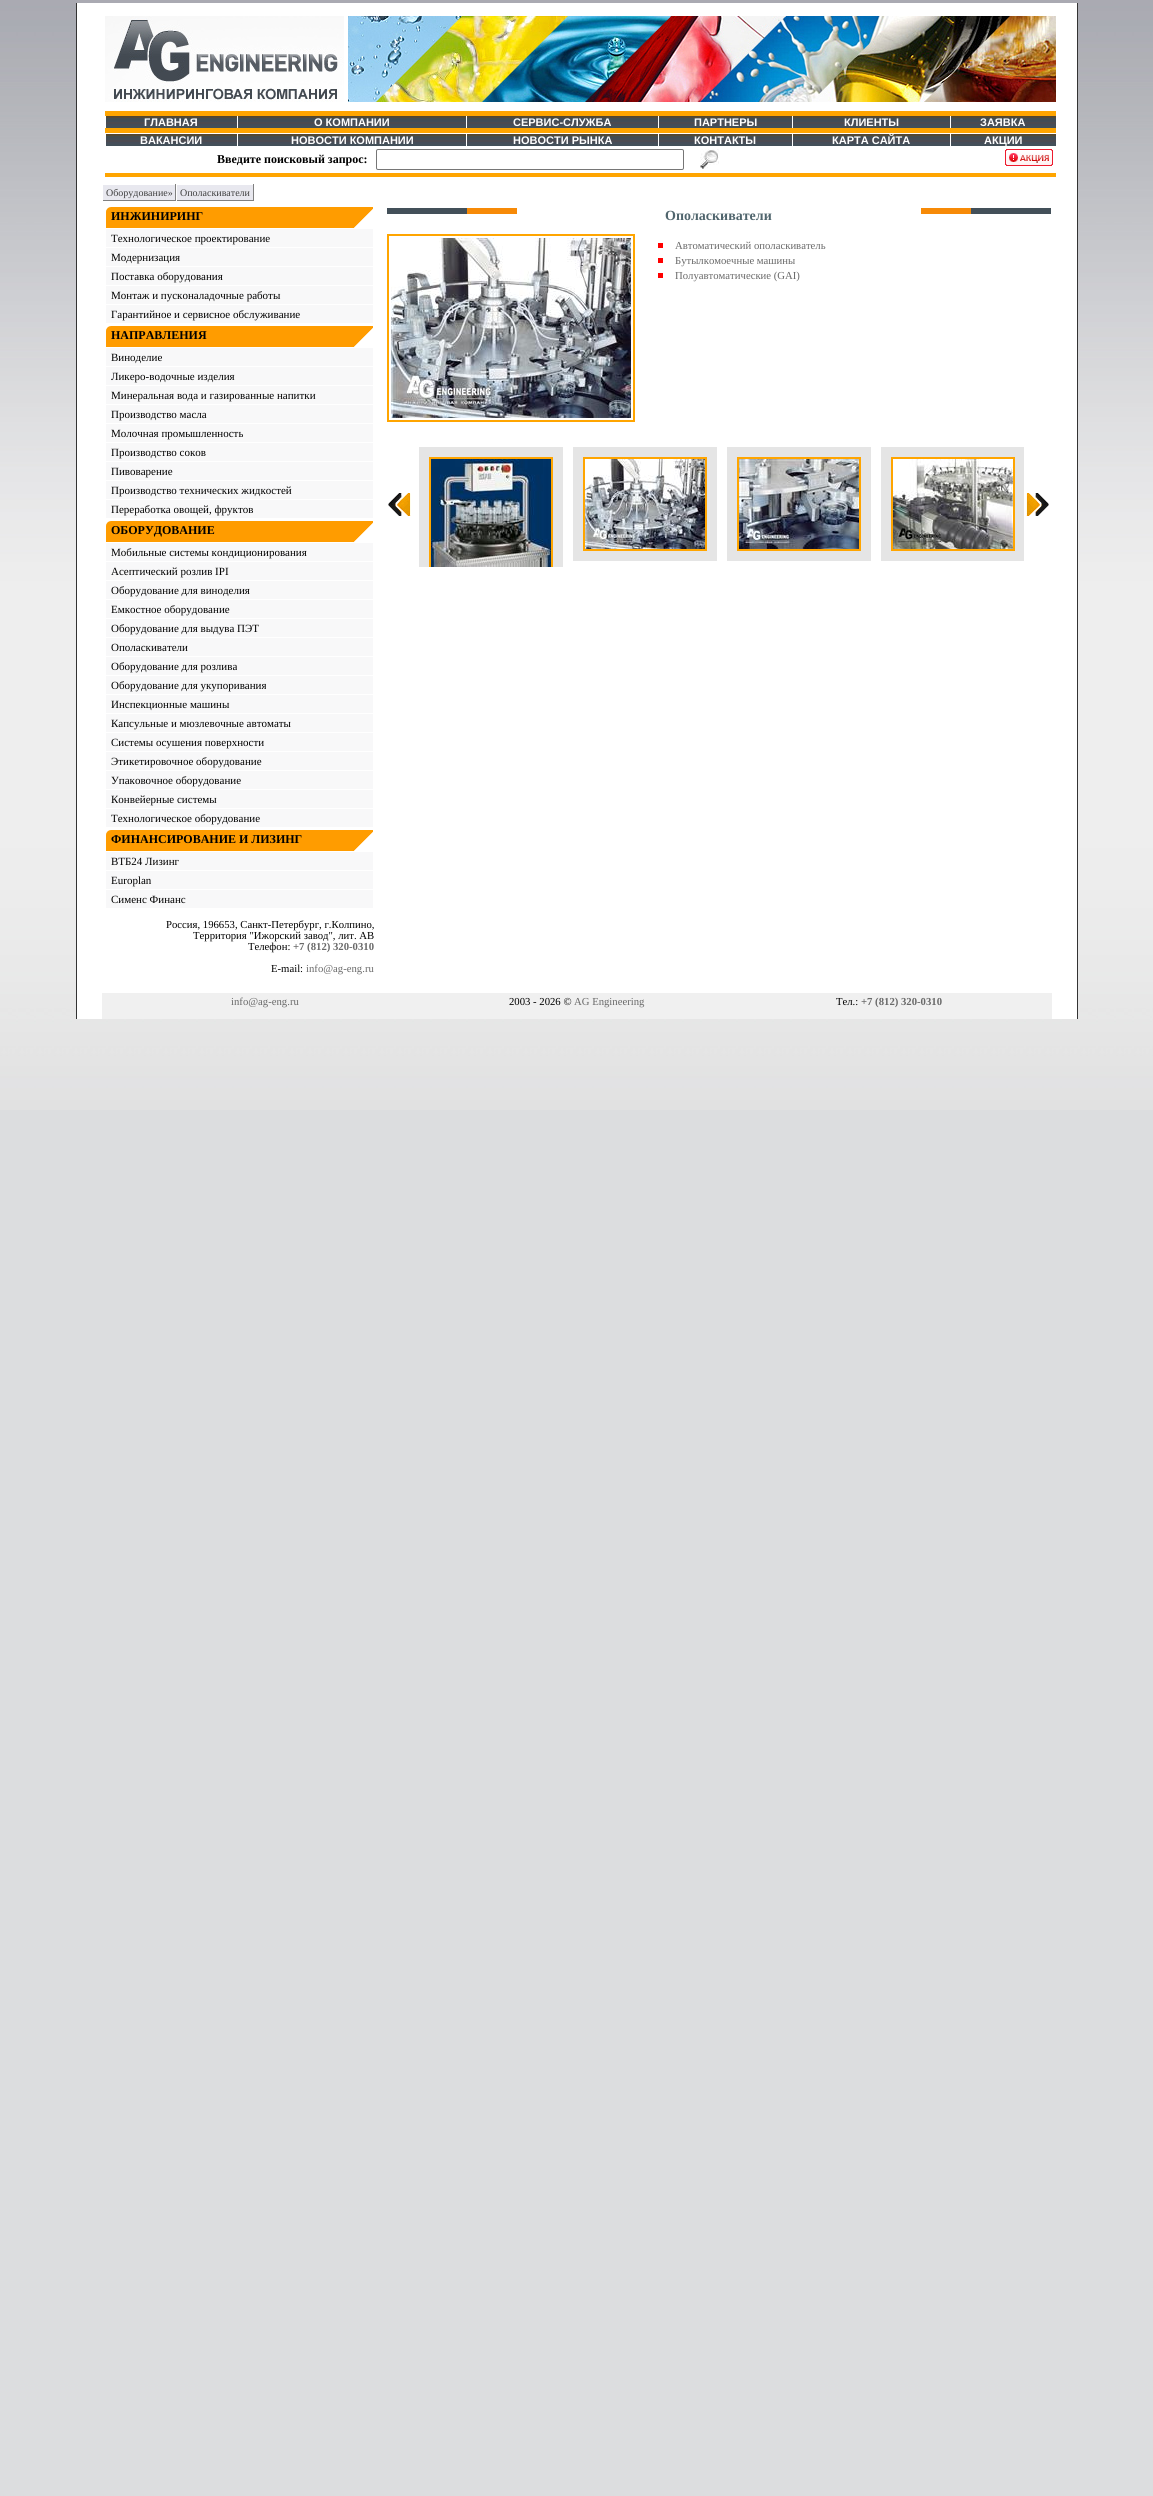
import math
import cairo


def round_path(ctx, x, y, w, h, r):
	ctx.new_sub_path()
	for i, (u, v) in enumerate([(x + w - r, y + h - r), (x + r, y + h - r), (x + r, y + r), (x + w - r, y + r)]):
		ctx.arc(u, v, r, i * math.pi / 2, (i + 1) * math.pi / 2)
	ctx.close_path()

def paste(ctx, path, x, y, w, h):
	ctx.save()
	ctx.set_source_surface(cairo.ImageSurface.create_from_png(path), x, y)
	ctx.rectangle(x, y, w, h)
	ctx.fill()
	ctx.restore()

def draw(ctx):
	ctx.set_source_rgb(0.863, 0.867, 0.875)
	ctx.paint()
	paste(ctx, 'media/1.png', 0, 0, 1153, 1110)
	ctx.set_source_rgb(1, 1, 1)
	ctx.rectangle(77, 3, 1000, 1016)
	ctx.fill()
	ctx.set_source_rgb(0.2, 0.2, 0.2)
	ctx.rectangle(1077, 3, 1, 1016)
	ctx.rectangle(76, 3, 1, 1016)
	ctx.fill()
	paste(ctx, 'media/2.png', 105, 16, 239, 86)
	paste(ctx, 'media/3.png', 348, 16, 708, 86)
	ctx.set_source_rgb(1, 0.647, 0)
	ctx.rectangle(105, 173, 951, 4)
	ctx.fill()
	ctx.rectangle(105, 111, 951, 5)
	ctx.fill()
	paste(ctx, 'media/4.png', 106, 116, 131, 12)
	ctx.select_font_face('Liberation Sans', cairo.FONT_SLANT_NORMAL, cairo.FONT_WEIGHT_BOLD)
	ctx.set_font_size(11)
	ctx.set_source_rgb(1, 1, 1)
	ctx.move_to(144, 126)
	ctx.show_text('ГЛАВНАЯ')
	paste(ctx, 'media/5.png', 238, 116, 228, 12)
	ctx.move_to(314, 126)
	ctx.show_text('О КОМПАНИИ')
	paste(ctx, 'media/6.png', 467, 116, 191, 12)
	ctx.move_to(513, 126)
	ctx.show_text('СЕРВИС-СЛУЖБА')
	paste(ctx, 'media/7.png', 659, 116, 133, 12)
	ctx.move_to(694, 126)
	ctx.show_text('ПАРТНЕРЫ')
	paste(ctx, 'media/8.png', 793, 116, 157, 12)
	ctx.move_to(844, 126)
	ctx.show_text('КЛИЕНТЫ')
	paste(ctx, 'media/9.png', 951, 116, 105, 12)
	ctx.move_to(980, 126)
	ctx.show_text('ЗАЯВКА')
	ctx.set_source_rgb(1, 0.647, 0)
	ctx.rectangle(105, 128, 951, 5)
	ctx.fill()
	paste(ctx, 'media/4.png', 106, 134, 131, 12)
	ctx.set_source_rgb(1, 1, 1)
	ctx.move_to(140, 144)
	ctx.show_text('ВАКАНСИИ')
	paste(ctx, 'media/5.png', 238, 134, 228, 12)
	ctx.move_to(291, 144)
	ctx.show_text('НОВОСТИ КОМПАНИИ')
	paste(ctx, 'media/6.png', 467, 134, 191, 12)
	ctx.move_to(513, 144)
	ctx.show_text('НОВОСТИ РЫНКА')
	paste(ctx, 'media/7.png', 659, 134, 133, 12)
	ctx.move_to(694, 144)
	ctx.show_text('КОНТАКТЫ')
	paste(ctx, 'media/8.png', 793, 134, 157, 12)
	ctx.move_to(832, 144)
	ctx.show_text('КАРТА САЙТА')
	paste(ctx, 'media/9.png', 951, 134, 105, 12)
	ctx.move_to(984, 144)
	ctx.show_text('АКЦИИ')
	ctx.select_font_face('Liberation Serif', cairo.FONT_SLANT_NORMAL, cairo.FONT_WEIGHT_BOLD)
	ctx.set_font_size(12)
	ctx.set_source_rgb(0, 0, 0)
	ctx.move_to(217, 163)
	ctx.show_text('Введите поисковый запрос:')
	round_path(ctx, 376.5, 149.5, 307, 20, 1.5)
	ctx.set_source_rgb(0.463, 0.463, 0.463)
	ctx.set_line_width(1)
	ctx.stroke()
	paste(ctx, 'media/10.png', 700, 149, 19, 20)
	paste(ctx, 'media/11.png', 1005, 149, 48, 17)
	ctx.set_source_rgb(0.91, 0.91, 0.937)
	ctx.rectangle(103, 185, 72, 15)
	ctx.fill()
	ctx.set_source_rgb(0.502, 0.502, 0.502)
	ctx.rectangle(175, 184, 1, 17)
	ctx.rectangle(102, 200, 74, 1)
	ctx.fill()
	ctx.set_source_rgb(1, 1, 1)
	ctx.rectangle(102, 200, 1, 1)
	ctx.fill()
	ctx.select_font_face('Liberation Serif')
	ctx.set_font_size(10)
	ctx.set_source_rgb(0.247, 0.247, 0.247)
	ctx.move_to(106, 196)
	ctx.show_text('Оборудование»')
	ctx.set_source_rgb(0.91, 0.91, 0.937)
	ctx.rectangle(177, 185, 76, 15)
	ctx.fill()
	ctx.set_source_rgb(0.502, 0.502, 0.502)
	ctx.rectangle(253, 184, 1, 17)
	ctx.rectangle(176, 200, 78, 1)
	ctx.fill()
	ctx.set_source_rgb(1, 1, 1)
	ctx.rectangle(176, 200, 1, 1)
	ctx.fill()
	ctx.set_source_rgb(0.247, 0.247, 0.247)
	ctx.move_to(180, 196)
	ctx.show_text('Ополаскиватели')
	paste(ctx, 'media/12.png', 106, 207, 267, 21)
	ctx.select_font_face('Liberation Serif', cairo.FONT_SLANT_NORMAL, cairo.FONT_WEIGHT_BOLD)
	ctx.set_font_size(12)
	ctx.set_source_rgb(0, 0, 0)
	ctx.move_to(111, 220)
	ctx.show_text('ИНЖИНИРИНГ')
	ctx.set_source_rgb(0.969, 0.969, 0.976)
	ctx.rectangle(106, 229, 267, 18)
	ctx.fill()
	ctx.select_font_face('Liberation Serif')
	ctx.set_font_size(11)
	ctx.set_source_rgb(0, 0, 0)
	ctx.move_to(111, 242)
	ctx.show_text('Технологическое проектирование')
	ctx.set_source_rgb(0.969, 0.969, 0.976)
	ctx.rectangle(106, 248, 267, 18)
	ctx.fill()
	ctx.set_source_rgb(0, 0, 0)
	ctx.move_to(111, 261)
	ctx.show_text('Модернизация')
	ctx.set_source_rgb(0.969, 0.969, 0.976)
	ctx.rectangle(106, 267, 267, 18)
	ctx.fill()
	ctx.set_source_rgb(0, 0, 0)
	ctx.move_to(111, 280)
	ctx.show_text('Поставка оборудования')
	ctx.set_source_rgb(0.969, 0.969, 0.976)
	ctx.rectangle(106, 286, 267, 18)
	ctx.fill()
	ctx.set_source_rgb(0, 0, 0)
	ctx.move_to(111, 299)
	ctx.show_text('Монтаж и пусконаладочные работы')
	ctx.set_source_rgb(0.969, 0.969, 0.976)
	ctx.rectangle(106, 305, 267, 18)
	ctx.fill()
	ctx.set_source_rgb(0, 0, 0)
	ctx.move_to(111, 318)
	ctx.show_text('Гарантийное и сервисное обслуживание')
	paste(ctx, 'media/12.png', 106, 326, 267, 21)
	ctx.select_font_face('Liberation Serif', cairo.FONT_SLANT_NORMAL, cairo.FONT_WEIGHT_BOLD)
	ctx.set_font_size(12)
	ctx.move_to(111, 339)
	ctx.show_text('НАПРАВЛЕНИЯ')
	ctx.set_source_rgb(0.969, 0.969, 0.976)
	ctx.rectangle(106, 348, 267, 18)
	ctx.fill()
	ctx.select_font_face('Liberation Serif')
	ctx.set_font_size(11)
	ctx.set_source_rgb(0, 0, 0)
	ctx.move_to(111, 361)
	ctx.show_text('Виноделие')
	ctx.set_source_rgb(0.969, 0.969, 0.976)
	ctx.rectangle(106, 367, 267, 18)
	ctx.fill()
	ctx.set_source_rgb(0, 0, 0)
	ctx.move_to(111, 380)
	ctx.show_text('Ликеро-водочные изделия')
	ctx.set_source_rgb(0.969, 0.969, 0.976)
	ctx.rectangle(106, 386, 267, 18)
	ctx.fill()
	ctx.set_source_rgb(0, 0, 0)
	ctx.move_to(111, 399)
	ctx.show_text('Минеральная вода и газированные напитки')
	ctx.set_source_rgb(0.969, 0.969, 0.976)
	ctx.rectangle(106, 405, 267, 18)
	ctx.fill()
	ctx.set_source_rgb(0, 0, 0)
	ctx.move_to(111, 418)
	ctx.show_text('Производство масла')
	ctx.set_source_rgb(0.969, 0.969, 0.976)
	ctx.rectangle(106, 424, 267, 18)
	ctx.fill()
	ctx.set_source_rgb(0, 0, 0)
	ctx.move_to(111, 437)
	ctx.show_text('Молочная промышленность')
	ctx.set_source_rgb(0.969, 0.969, 0.976)
	ctx.rectangle(106, 443, 267, 18)
	ctx.fill()
	ctx.set_source_rgb(0, 0, 0)
	ctx.move_to(111, 456)
	ctx.show_text('Производство соков')
	ctx.set_source_rgb(0.969, 0.969, 0.976)
	ctx.rectangle(106, 462, 267, 18)
	ctx.fill()
	ctx.set_source_rgb(0, 0, 0)
	ctx.move_to(111, 475)
	ctx.show_text('Пивоварение')
	ctx.set_source_rgb(0.969, 0.969, 0.976)
	ctx.rectangle(106, 481, 267, 18)
	ctx.fill()
	ctx.set_source_rgb(0, 0, 0)
	ctx.move_to(111, 494)
	ctx.show_text('Производство технических жидкостей')
	ctx.set_source_rgb(0.969, 0.969, 0.976)
	ctx.rectangle(106, 500, 267, 18)
	ctx.fill()
	ctx.set_source_rgb(0, 0, 0)
	ctx.move_to(111, 513)
	ctx.show_text('Переработка овощей, фруктов')
	paste(ctx, 'media/12.png', 106, 521, 267, 21)
	ctx.select_font_face('Liberation Serif', cairo.FONT_SLANT_NORMAL, cairo.FONT_WEIGHT_BOLD)
	ctx.set_font_size(12)
	ctx.move_to(111, 534)
	ctx.show_text('ОБОРУДОВАНИЕ')
	ctx.set_source_rgb(0.969, 0.969, 0.976)
	ctx.rectangle(106, 543, 267, 18)
	ctx.fill()
	ctx.select_font_face('Liberation Serif')
	ctx.set_font_size(11)
	ctx.set_source_rgb(0, 0, 0)
	ctx.move_to(111, 556)
	ctx.show_text('Мобильные системы кондиционирования')
	ctx.set_source_rgb(0.969, 0.969, 0.976)
	ctx.rectangle(106, 562, 267, 18)
	ctx.fill()
	ctx.set_source_rgb(0, 0, 0)
	ctx.move_to(111, 575)
	ctx.show_text('Асептический розлив IPI')
	ctx.set_source_rgb(0.969, 0.969, 0.976)
	ctx.rectangle(106, 581, 267, 18)
	ctx.fill()
	ctx.set_source_rgb(0, 0, 0)
	ctx.move_to(111, 594)
	ctx.show_text('Оборудование для виноделия')
	ctx.set_source_rgb(0.969, 0.969, 0.976)
	ctx.rectangle(106, 600, 267, 18)
	ctx.fill()
	ctx.set_source_rgb(0, 0, 0)
	ctx.move_to(111, 613)
	ctx.show_text('Емкостное оборудование')
	ctx.set_source_rgb(0.969, 0.969, 0.976)
	ctx.rectangle(106, 619, 267, 18)
	ctx.fill()
	ctx.set_source_rgb(0, 0, 0)
	ctx.move_to(111, 632)
	ctx.show_text('Оборудование для выдува ПЭТ')
	ctx.set_source_rgb(0.969, 0.969, 0.976)
	ctx.rectangle(106, 638, 267, 18)
	ctx.fill()
	ctx.set_source_rgb(0, 0, 0)
	ctx.move_to(111, 651)
	ctx.show_text('Ополаскиватели')
	ctx.set_source_rgb(0.969, 0.969, 0.976)
	ctx.rectangle(106, 657, 267, 18)
	ctx.fill()
	ctx.set_source_rgb(0, 0, 0)
	ctx.move_to(111, 670)
	ctx.show_text('Оборудование для розлива')
	ctx.set_source_rgb(0.969, 0.969, 0.976)
	ctx.rectangle(106, 676, 267, 18)
	ctx.fill()
	ctx.set_source_rgb(0, 0, 0)
	ctx.move_to(111, 689)
	ctx.show_text('Оборудование для укупоривания')
	ctx.set_source_rgb(0.969, 0.969, 0.976)
	ctx.rectangle(106, 695, 267, 18)
	ctx.fill()
	ctx.set_source_rgb(0, 0, 0)
	ctx.move_to(111, 708)
	ctx.show_text('Инспекционные машины')
	ctx.set_source_rgb(0.969, 0.969, 0.976)
	ctx.rectangle(106, 714, 267, 18)
	ctx.fill()
	ctx.set_source_rgb(0, 0, 0)
	ctx.move_to(111, 727)
	ctx.show_text('Капсульные и мюзлевочные автоматы')
	ctx.set_source_rgb(0.969, 0.969, 0.976)
	ctx.rectangle(106, 733, 267, 18)
	ctx.fill()
	ctx.set_source_rgb(0, 0, 0)
	ctx.move_to(111, 746)
	ctx.show_text('Системы осушения поверхности')
	ctx.set_source_rgb(0.969, 0.969, 0.976)
	ctx.rectangle(106, 752, 267, 18)
	ctx.fill()
	ctx.set_source_rgb(0, 0, 0)
	ctx.move_to(111, 765)
	ctx.show_text('Этикетировочное оборудование')
	ctx.set_source_rgb(0.969, 0.969, 0.976)
	ctx.rectangle(106, 771, 267, 18)
	ctx.fill()
	ctx.set_source_rgb(0, 0, 0)
	ctx.move_to(111, 784)
	ctx.show_text('Упаковочное оборудование')
	ctx.set_source_rgb(0.969, 0.969, 0.976)
	ctx.rectangle(106, 790, 267, 18)
	ctx.fill()
	ctx.set_source_rgb(0, 0, 0)
	ctx.move_to(111, 803)
	ctx.show_text('Конвейерные системы')
	ctx.set_source_rgb(0.969, 0.969, 0.976)
	ctx.rectangle(106, 809, 267, 18)
	ctx.fill()
	ctx.set_source_rgb(0, 0, 0)
	ctx.move_to(111, 822)
	ctx.show_text('Технологическое оборудование')
	paste(ctx, 'media/12.png', 106, 830, 267, 21)
	ctx.select_font_face('Liberation Serif', cairo.FONT_SLANT_NORMAL, cairo.FONT_WEIGHT_BOLD)
	ctx.set_font_size(12)
	ctx.move_to(111, 843)
	ctx.show_text('ФИНАНСИРОВАНИЕ И ЛИЗИНГ')
	ctx.set_source_rgb(0.969, 0.969, 0.976)
	ctx.rectangle(106, 852, 267, 18)
	ctx.fill()
	ctx.select_font_face('Liberation Serif')
	ctx.set_font_size(11)
	ctx.set_source_rgb(0, 0, 0)
	ctx.move_to(111, 865)
	ctx.show_text('ВТБ24 Лизинг')
	ctx.set_source_rgb(0.969, 0.969, 0.976)
	ctx.rectangle(106, 871, 267, 18)
	ctx.fill()
	ctx.set_source_rgb(0, 0, 0)
	ctx.move_to(111, 884)
	ctx.show_text('Europlan')
	ctx.set_source_rgb(0.969, 0.969, 0.976)
	ctx.rectangle(106, 890, 267, 18)
	ctx.fill()
	ctx.set_source_rgb(0, 0, 0)
	ctx.move_to(111, 903)
	ctx.show_text('Сименс Финанс')
	ctx.set_font_size(10.7)
	for x, y, s in [
		(166, 928, 'Россия, 196653, Санкт-Петербург, г.Колпино,'),
		(193, 939, 'Территория "Ижорский завод", лит. АВ'),
		(248, 950, 'Телефон:'),
	]:
		ctx.move_to(x, y)
		ctx.show_text(s)
	ctx.select_font_face('Liberation Serif', cairo.FONT_SLANT_NORMAL, cairo.FONT_WEIGHT_BOLD)
	ctx.set_source_rgb(0.412, 0.412, 0.412)
	ctx.move_to(293, 950)
	ctx.show_text('+7 (812) 320-0310')
	ctx.select_font_face('Liberation Serif')
	ctx.set_source_rgb(0, 0, 0)
	ctx.move_to(271, 972)
	ctx.show_text('E-mail:')
	ctx.set_source_rgb(0.412, 0.412, 0.412)
	ctx.move_to(306, 972)
	ctx.show_text('info@ag-eng.ru')
	paste(ctx, 'media/13.png', 387, 208, 130, 6)
	ctx.select_font_face('Liberation Serif', cairo.FONT_SLANT_NORMAL, cairo.FONT_WEIGHT_BOLD)
	ctx.set_font_size(14)
	ctx.set_source_rgb(0.314, 0.396, 0.427)
	ctx.move_to(665, 220)
	ctx.show_text('Ополаскиватели')
	paste(ctx, 'media/14.png', 921, 208, 130, 6)
	ctx.rectangle(388, 235, 246, 186)
	ctx.set_source_rgb(1, 0.647, 0)
	ctx.set_line_width(2)
	ctx.stroke()
	paste(ctx, 'media/15.png', 391, 238, 240, 180)
	ctx.set_source_rgb(1, 0, 0)
	ctx.rectangle(658, 243, 5, 5)
	ctx.fill()
	ctx.select_font_face('Liberation Serif')
	ctx.set_font_size(10.7)
	ctx.set_source_rgb(0.412, 0.412, 0.412)
	ctx.move_to(675, 249)
	ctx.show_text('Автоматический ополаскиватель')
	ctx.set_source_rgb(1, 0, 0)
	ctx.rectangle(658, 258, 5, 5)
	ctx.fill()
	ctx.set_source_rgb(0.412, 0.412, 0.412)
	ctx.move_to(675, 264)
	ctx.show_text('Бутылкомоечные машины')
	ctx.set_source_rgb(1, 0, 0)
	ctx.rectangle(658, 273, 5, 5)
	ctx.fill()
	ctx.set_source_rgb(0.412, 0.412, 0.412)
	ctx.move_to(675, 279)
	ctx.show_text('Полуавтоматические (GAI)')
	paste(ctx, 'media/16.png', 388, 493, 23, 23)
	ctx.set_source_rgb(0.898, 0.898, 0.898)
	ctx.rectangle(419, 447, 144, 120)
	ctx.fill()
	ctx.save()
	ctx.rectangle(414, 442, 610, 125)
	ctx.clip()
	ctx.rectangle(430, 458, 122, 167)
	ctx.set_source_rgb(1, 0.647, 0)
	ctx.stroke()
	ctx.restore()
	paste(ctx, 'media/17.png', 431, 459, 120, 108)
	ctx.rectangle(573, 447, 144, 114)
	ctx.fill()
	ctx.rectangle(584, 458, 122, 92)
	ctx.set_source_rgb(1, 0.647, 0)
	ctx.stroke()
	paste(ctx, 'media/18.png', 585, 459, 120, 90)
	ctx.set_source_rgb(0.898, 0.898, 0.898)
	ctx.rectangle(727, 447, 144, 114)
	ctx.fill()
	ctx.rectangle(738, 458, 122, 92)
	ctx.set_source_rgb(1, 0.647, 0)
	ctx.stroke()
	paste(ctx, 'media/19.png', 739, 459, 120, 90)
	ctx.set_source_rgb(0.898, 0.898, 0.898)
	ctx.rectangle(881, 447, 143, 114)
	ctx.fill()
	ctx.rectangle(892, 458, 122, 92)
	ctx.set_source_rgb(1, 0.647, 0)
	ctx.stroke()
	paste(ctx, 'media/20.png', 893, 459, 120, 90)
	paste(ctx, 'media/21.png', 1026, 493, 23, 23)
	ctx.set_source_rgb(0.941, 0.941, 0.941)
	ctx.rectangle(102, 993, 950, 26)
	ctx.fill()
	ctx.set_source_rgb(0.412, 0.412, 0.412)
	ctx.move_to(231, 1005)
	ctx.show_text('info@ag-eng.ru')
	ctx.set_source_rgb(0, 0, 0)
	ctx.move_to(509, 1005)
	ctx.show_text('2003 - 2026 ©')
	ctx.set_source_rgb(0.412, 0.412, 0.412)
	ctx.move_to(574, 1005)
	ctx.show_text('AG Engineering')
	ctx.set_source_rgb(0, 0, 0)
	ctx.move_to(836, 1005)
	ctx.show_text('Тел.:')
	ctx.select_font_face('Liberation Serif', cairo.FONT_SLANT_NORMAL, cairo.FONT_WEIGHT_BOLD)
	ctx.set_source_rgb(0.412, 0.412, 0.412)
	ctx.move_to(861, 1005)
	ctx.show_text('+7 (812) 320-0310')


surface = cairo.ImageSurface(cairo.FORMAT_RGB24, 1153, 2496)
ctx = cairo.Context(surface)
options = cairo.FontOptions()
options.set_hint_metrics(cairo.HINT_METRICS_OFF)
options.set_hint_style(cairo.HINT_STYLE_NONE)
ctx.set_font_options(options)
ctx.set_miter_limit(4)
draw(ctx)
surface.write_to_png('image.png')
